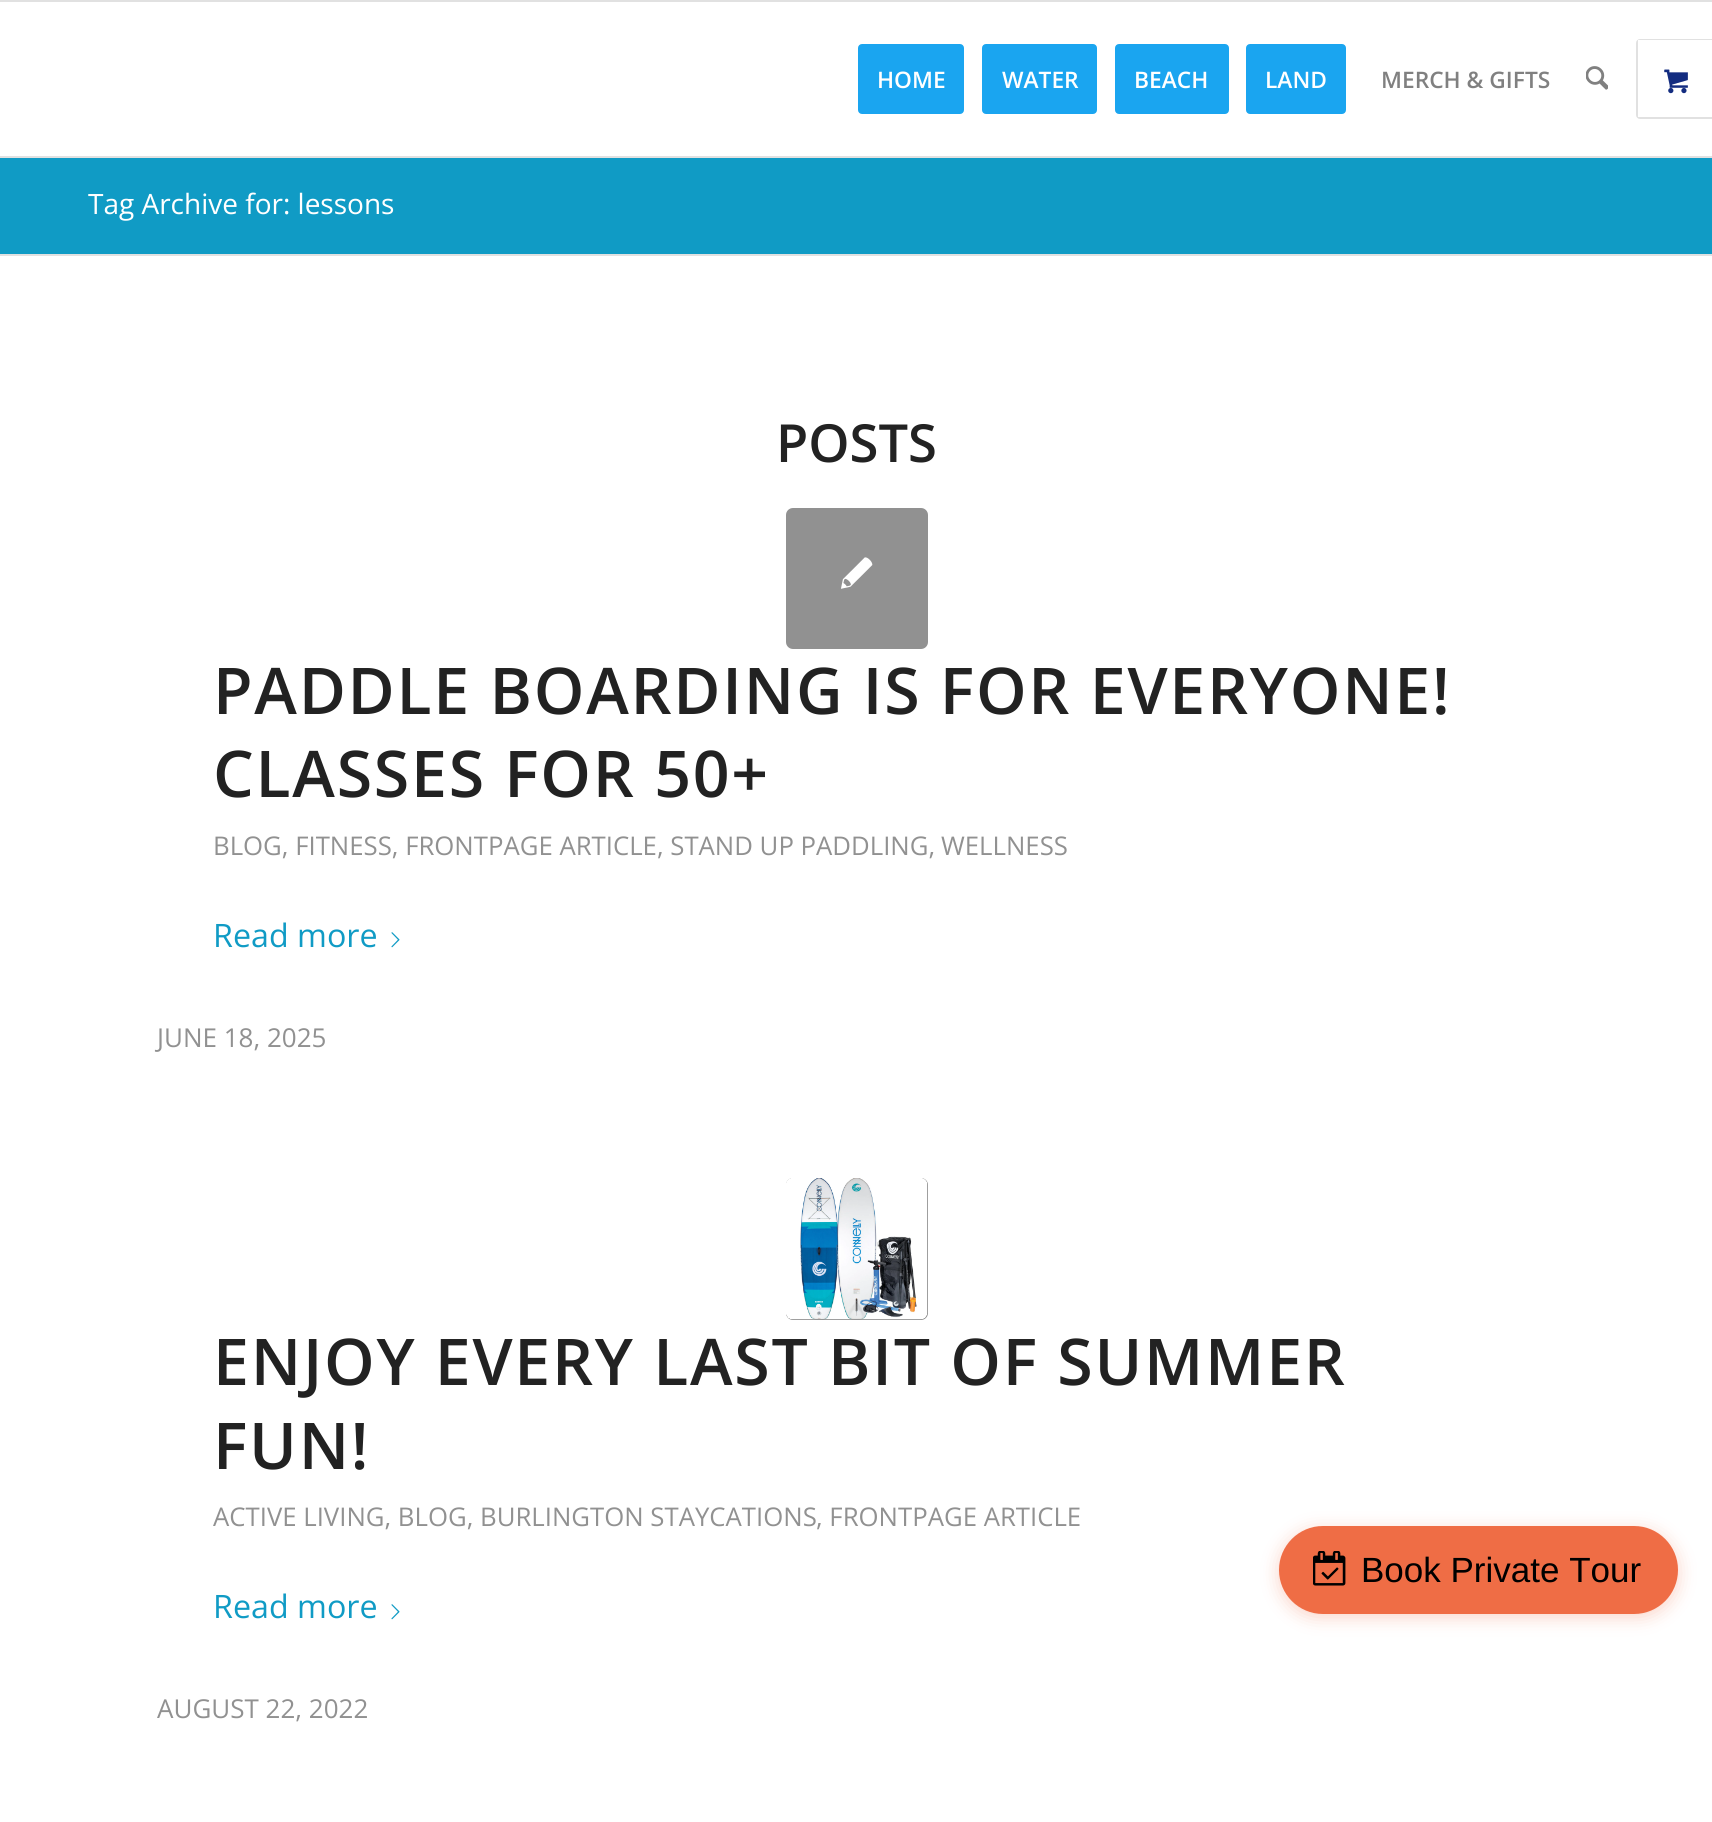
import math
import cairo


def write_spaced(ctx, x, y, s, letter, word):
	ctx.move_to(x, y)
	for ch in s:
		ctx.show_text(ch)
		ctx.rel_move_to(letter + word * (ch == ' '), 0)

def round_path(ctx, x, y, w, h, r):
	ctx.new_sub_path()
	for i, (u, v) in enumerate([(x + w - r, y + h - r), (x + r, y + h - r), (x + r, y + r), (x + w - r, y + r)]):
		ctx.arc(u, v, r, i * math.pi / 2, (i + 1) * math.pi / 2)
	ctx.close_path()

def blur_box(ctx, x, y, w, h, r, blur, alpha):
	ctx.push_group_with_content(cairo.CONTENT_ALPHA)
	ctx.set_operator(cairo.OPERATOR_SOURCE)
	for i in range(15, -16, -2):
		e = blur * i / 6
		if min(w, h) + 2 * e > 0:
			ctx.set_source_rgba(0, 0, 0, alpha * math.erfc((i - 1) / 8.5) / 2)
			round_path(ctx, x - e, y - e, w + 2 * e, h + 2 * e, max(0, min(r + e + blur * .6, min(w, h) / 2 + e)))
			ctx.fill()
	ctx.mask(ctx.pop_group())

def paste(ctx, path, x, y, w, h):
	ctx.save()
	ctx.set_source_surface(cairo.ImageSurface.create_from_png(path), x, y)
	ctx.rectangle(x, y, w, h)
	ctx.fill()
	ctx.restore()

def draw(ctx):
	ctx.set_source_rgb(1, 1, 1)
	ctx.paint()
	ctx.set_source_rgb(0.882, 0.882, 0.882)
	ctx.rectangle(0, 0, 1712, 2)
	ctx.fill()
	ctx.rectangle(0, 156, 1712, 2)
	ctx.fill()
	ctx.set_source_rgb(0.102, 0.647, 0.941)
	round_path(ctx, 860, 46, 102, 66, 2)
	ctx.fill_preserve()
	ctx.set_line_width(4)
	ctx.stroke()
	ctx.select_font_face('Open Sans SemiBold')
	ctx.set_font_size(22.75)
	ctx.set_source_rgb(1, 1, 1)
	ctx.move_to(877, 88)
	ctx.show_text('HOME')
	ctx.set_source_rgb(0.102, 0.647, 0.941)
	round_path(ctx, 984, 46, 111, 66, 2)
	ctx.fill_preserve()
	ctx.stroke()
	ctx.set_source_rgb(1, 1, 1)
	ctx.move_to(1002, 88)
	ctx.show_text('WATER')
	ctx.set_source_rgb(0.102, 0.647, 0.941)
	round_path(ctx, 1117, 46, 110, 66, 2)
	ctx.fill_preserve()
	ctx.stroke()
	ctx.set_source_rgb(1, 1, 1)
	ctx.move_to(1134, 88)
	ctx.show_text('BEACH')
	ctx.set_source_rgb(0.102, 0.647, 0.941)
	round_path(ctx, 1248, 46, 96, 66, 2)
	ctx.fill_preserve()
	ctx.stroke()
	ctx.set_source_rgb(1, 1, 1)
	ctx.move_to(1265, 88)
	ctx.show_text('LAND')
	ctx.set_source_rgb(0.502, 0.502, 0.502)
	ctx.move_to(1381, 88)
	ctx.show_text('MERCH & GIFTS')
	paste(ctx, 'media/1.png', 1586, 66, 22, 24)
	round_path(ctx, 1637, 40, 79, 78, 3)
	ctx.set_source_rgb(0.882, 0.882, 0.882)
	ctx.set_line_width(2)
	ctx.stroke()
	ctx.set_source_rgb(1, 1, 1)
	ctx.rectangle(1638, 40, 74, 77)
	ctx.fill()
	paste(ctx, 'media/2.png', 1664, 69, 24, 25)
	ctx.set_source_rgb(0.063, 0.608, 0.773)
	ctx.rectangle(0, 158, 1712, 96)
	ctx.fill()
	ctx.select_font_face('Open Sans')
	ctx.set_font_size(28)
	ctx.set_source_rgb(1, 1, 1)
	ctx.move_to(88, 214)
	ctx.show_text('Tag Archive for: lessons')
	ctx.set_source_rgb(0.882, 0.882, 0.882)
	ctx.rectangle(0, 254, 1712, 2)
	ctx.fill()
	ctx.select_font_face('Open Sans SemiBold')
	ctx.set_font_size(52.5)
	ctx.set_source_rgb(0.133, 0.133, 0.133)
	ctx.move_to(776, 462)
	ctx.show_text('POSTS')
	ctx.set_source_rgb(0.569, 0.569, 0.569)
	round_path(ctx, 786, 508, 142, 141, 7)
	ctx.fill()
	paste(ctx, 'media/3.png', 841, 557, 32, 32)
	ctx.set_font_size(64.4)
	ctx.set_source_rgb(0.133, 0.133, 0.133)
	write_spaced(ctx, 213, 714, 'PADDLE BOARDING IS FOR EVERYONE!', 1.75, 0)
	write_spaced(ctx, 213, 797, 'CLASSES FOR 50+', 1.75, 0)
	ctx.select_font_face('Open Sans')
	ctx.set_font_size(25.75)
	ctx.set_source_rgb(0.569, 0.569, 0.569)
	ctx.move_to(213, 855)
	ctx.show_text('BLOG, FITNESS, FRONTPAGE ARTICLE, STAND UP PADDLING,')
	ctx.move_to(941, 855)
	ctx.show_text('WELLNESS')
	ctx.set_font_size(32.25)
	ctx.set_source_rgb(0.063, 0.608, 0.773)
	ctx.move_to(213, 947)
	ctx.show_text('Read more')
	paste(ctx, 'media/4.png', 391, 932, 9, 16)
	ctx.set_font_size(26)
	ctx.set_source_rgb(0.569, 0.569, 0.569)
	ctx.move_to(157, 1047)
	ctx.show_text('JUNE 18, 2025')
	round_path(ctx, 786, 1178, 142, 142, 7)
	ctx.fill()
	paste(ctx, 'media/5.png', 786, 1178, 142, 142)
	ctx.select_font_face('Open Sans SemiBold')
	ctx.set_font_size(64.4)
	ctx.set_source_rgb(0.133, 0.133, 0.133)
	write_spaced(ctx, 213, 1385, 'ENJOY EVERY LAST BIT OF SUMMER', 1.75, 0)
	write_spaced(ctx, 213, 1469, 'FUN!', 1.75, 0)
	ctx.select_font_face('Open Sans')
	ctx.set_font_size(25.75)
	ctx.set_source_rgb(0.569, 0.569, 0.569)
	ctx.move_to(213, 1526)
	ctx.show_text('ACTIVE LIVING, BLOG, BURLINGTON STAYCATIONS')
	ctx.move_to(816, 1526)
	ctx.show_text(', FRONTPAGE ARTICLE')
	ctx.set_font_size(32.25)
	ctx.set_source_rgb(0.063, 0.608, 0.773)
	ctx.move_to(213, 1618)
	ctx.show_text('Read more')
	paste(ctx, 'media/4.png', 391, 1604, 9, 16)
	ctx.set_font_size(26)
	ctx.set_source_rgb(0.569, 0.569, 0.569)
	ctx.move_to(157, 1718)
	ctx.show_text('AUGUST 22, 2022')
	ctx.set_source_rgb(0.937, 0.427, 0.271)
	blur_box(ctx, 1279, 1530, 399, 87, 43.5, 9, 0.3)
	ctx.set_source_rgb(0.937, 0.427, 0.271)
	round_path(ctx, 1280, 1527, 397, 86, 43)
	ctx.fill_preserve()
	ctx.stroke()
	paste(ctx, 'media/6.png', 1313, 1551, 33, 35)
	ctx.select_font_face('Liberation Sans')
	ctx.set_font_size(35)
	ctx.set_source_rgb(0, 0, 0)
	ctx.move_to(1361, 1582)
	ctx.show_text('Book Private Tour')


surface = cairo.ImageSurface(cairo.FORMAT_RGB24, 1712, 1822)
ctx = cairo.Context(surface)
options = cairo.FontOptions()
options.set_hint_metrics(cairo.HINT_METRICS_OFF)
options.set_hint_style(cairo.HINT_STYLE_NONE)
ctx.set_font_options(options)
ctx.set_miter_limit(4)
draw(ctx)
surface.write_to_png('image.png')
